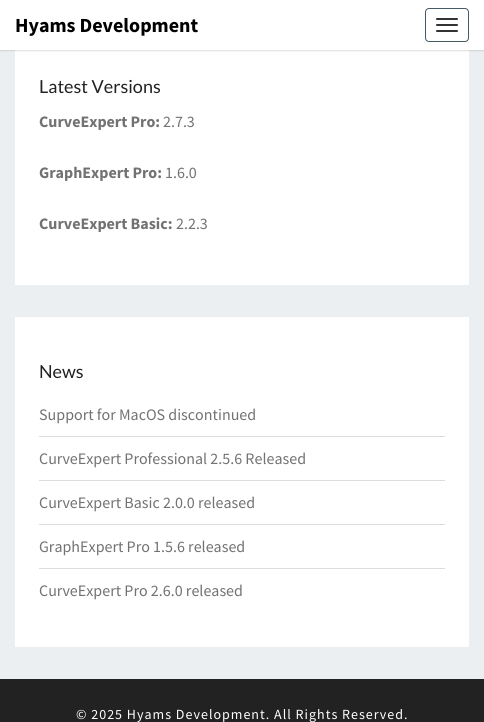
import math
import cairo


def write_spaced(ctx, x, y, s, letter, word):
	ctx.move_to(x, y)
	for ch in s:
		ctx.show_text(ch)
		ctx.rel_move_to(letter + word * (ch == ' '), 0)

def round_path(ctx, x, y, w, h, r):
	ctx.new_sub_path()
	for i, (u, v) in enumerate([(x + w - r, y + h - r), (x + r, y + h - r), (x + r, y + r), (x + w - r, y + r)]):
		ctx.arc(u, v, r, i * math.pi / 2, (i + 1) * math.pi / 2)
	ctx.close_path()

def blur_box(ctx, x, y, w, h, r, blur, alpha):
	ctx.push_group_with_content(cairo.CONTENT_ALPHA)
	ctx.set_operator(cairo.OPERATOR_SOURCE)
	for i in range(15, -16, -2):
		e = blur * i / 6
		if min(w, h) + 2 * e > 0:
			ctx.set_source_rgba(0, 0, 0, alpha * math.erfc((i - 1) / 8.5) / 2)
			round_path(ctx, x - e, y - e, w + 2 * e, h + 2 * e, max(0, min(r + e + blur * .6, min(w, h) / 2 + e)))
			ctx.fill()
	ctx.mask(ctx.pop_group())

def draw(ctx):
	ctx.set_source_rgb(0.925, 0.937, 0.945)
	ctx.paint()
	ctx.set_source_rgb(1, 1, 1)
	ctx.rectangle(15, 50, 454, 235)
	ctx.fill()
	ctx.set_source_rgb(0.392, 0.392, 0.392)
	blur_box(ctx, 0, 1, 484, 50, 0, 0.5, 0.2)
	ctx.set_source_rgb(1, 1, 1)
	ctx.rectangle(0, 0, 484, 50)
	ctx.fill()
	ctx.select_font_face('Source Sans Pro', cairo.FONT_SLANT_NORMAL, cairo.FONT_WEIGHT_BOLD)
	ctx.set_font_size(20)
	ctx.set_source_rgb(0, 0, 0)
	ctx.move_to(15, 32)
	ctx.show_text('Hyams Development')
	round_path(ctx, 425.5, 8.5, 43, 33, 3.5)
	ctx.set_source_rgb(0.271, 0.353, 0.392)
	ctx.set_line_width(1)
	ctx.stroke()
	ctx.set_source_rgb(0.2, 0.2, 0.2)
	round_path(ctx, 436, 18, 22, 2, 1)
	ctx.fill()
	round_path(ctx, 436, 24, 22, 2, 1)
	ctx.fill()
	round_path(ctx, 436, 30, 22, 2, 1)
	ctx.fill()
	ctx.select_font_face('Lato')
	ctx.set_font_size(18)
	ctx.set_source_rgb(0.129, 0.129, 0.129)
	ctx.move_to(39, 93)
	ctx.show_text('Latest Versions')
	ctx.select_font_face('Source Sans Pro', cairo.FONT_SLANT_NORMAL, cairo.FONT_WEIGHT_BOLD)
	ctx.set_font_size(16)
	ctx.set_source_rgb(0.447, 0.447, 0.447)
	ctx.move_to(39, 127)
	ctx.show_text('CurveExpert Pro:')
	ctx.select_font_face('Source Sans Pro')
	ctx.move_to(163, 127)
	ctx.show_text('2.7.3')
	ctx.select_font_face('Source Sans Pro', cairo.FONT_SLANT_NORMAL, cairo.FONT_WEIGHT_BOLD)
	ctx.move_to(39, 178)
	ctx.show_text('GraphExpert Pro:')
	ctx.select_font_face('Source Sans Pro')
	ctx.move_to(165, 178)
	ctx.show_text('1.6.0')
	ctx.select_font_face('Source Sans Pro', cairo.FONT_SLANT_NORMAL, cairo.FONT_WEIGHT_BOLD)
	ctx.move_to(39, 229)
	ctx.show_text('CurveExpert Basic:')
	ctx.select_font_face('Source Sans Pro')
	ctx.move_to(176, 229)
	ctx.show_text('2.2.3')
	ctx.set_source_rgb(1, 1, 1)
	ctx.rectangle(15, 317, 454, 330)
	ctx.fill()
	ctx.select_font_face('Lato')
	ctx.set_font_size(18)
	ctx.set_source_rgb(0.129, 0.129, 0.129)
	ctx.move_to(39, 378)
	ctx.show_text('News')
	ctx.set_source_rgb(0.867, 0.867, 0.867)
	ctx.rectangle(39, 436, 406, 1)
	ctx.fill()
	ctx.select_font_face('Source Sans Pro')
	ctx.set_font_size(16)
	ctx.set_source_rgb(0.447, 0.447, 0.447)
	ctx.move_to(39, 420)
	ctx.show_text('Support for MacOS discontinued')
	ctx.set_source_rgb(0.867, 0.867, 0.867)
	ctx.rectangle(39, 480, 406, 1)
	ctx.fill()
	ctx.set_source_rgb(0.447, 0.447, 0.447)
	ctx.move_to(39, 464)
	ctx.show_text('CurveExpert Professional 2.5.6 Released')
	ctx.set_source_rgb(0.867, 0.867, 0.867)
	ctx.rectangle(39, 524, 406, 1)
	ctx.fill()
	ctx.set_source_rgb(0.447, 0.447, 0.447)
	ctx.move_to(39, 508)
	ctx.show_text('CurveExpert Basic 2.0.0 released')
	ctx.set_source_rgb(0.867, 0.867, 0.867)
	ctx.rectangle(39, 568, 406, 1)
	ctx.fill()
	ctx.set_source_rgb(0.447, 0.447, 0.447)
	ctx.move_to(39, 552)
	ctx.show_text('GraphExpert Pro 1.5.6 released')
	ctx.move_to(39, 596)
	ctx.show_text('CurveExpert Pro 2.6.0 released')
	ctx.set_source_rgb(0.133, 0.133, 0.133)
	ctx.rectangle(0, 679, 484, 43)
	ctx.fill()
	ctx.set_font_size(14)
	ctx.set_source_rgb(1, 1, 1)
	write_spaced(ctx, 76, 719, '© 2025 Hyams Development. All Rights Reserved.', 1, 0)


surface = cairo.ImageSurface(cairo.FORMAT_RGB24, 484, 722)
ctx = cairo.Context(surface)
options = cairo.FontOptions()
options.set_hint_metrics(cairo.HINT_METRICS_OFF)
options.set_hint_style(cairo.HINT_STYLE_NONE)
ctx.set_font_options(options)
ctx.set_miter_limit(4)
draw(ctx)
surface.write_to_png('image.png')
